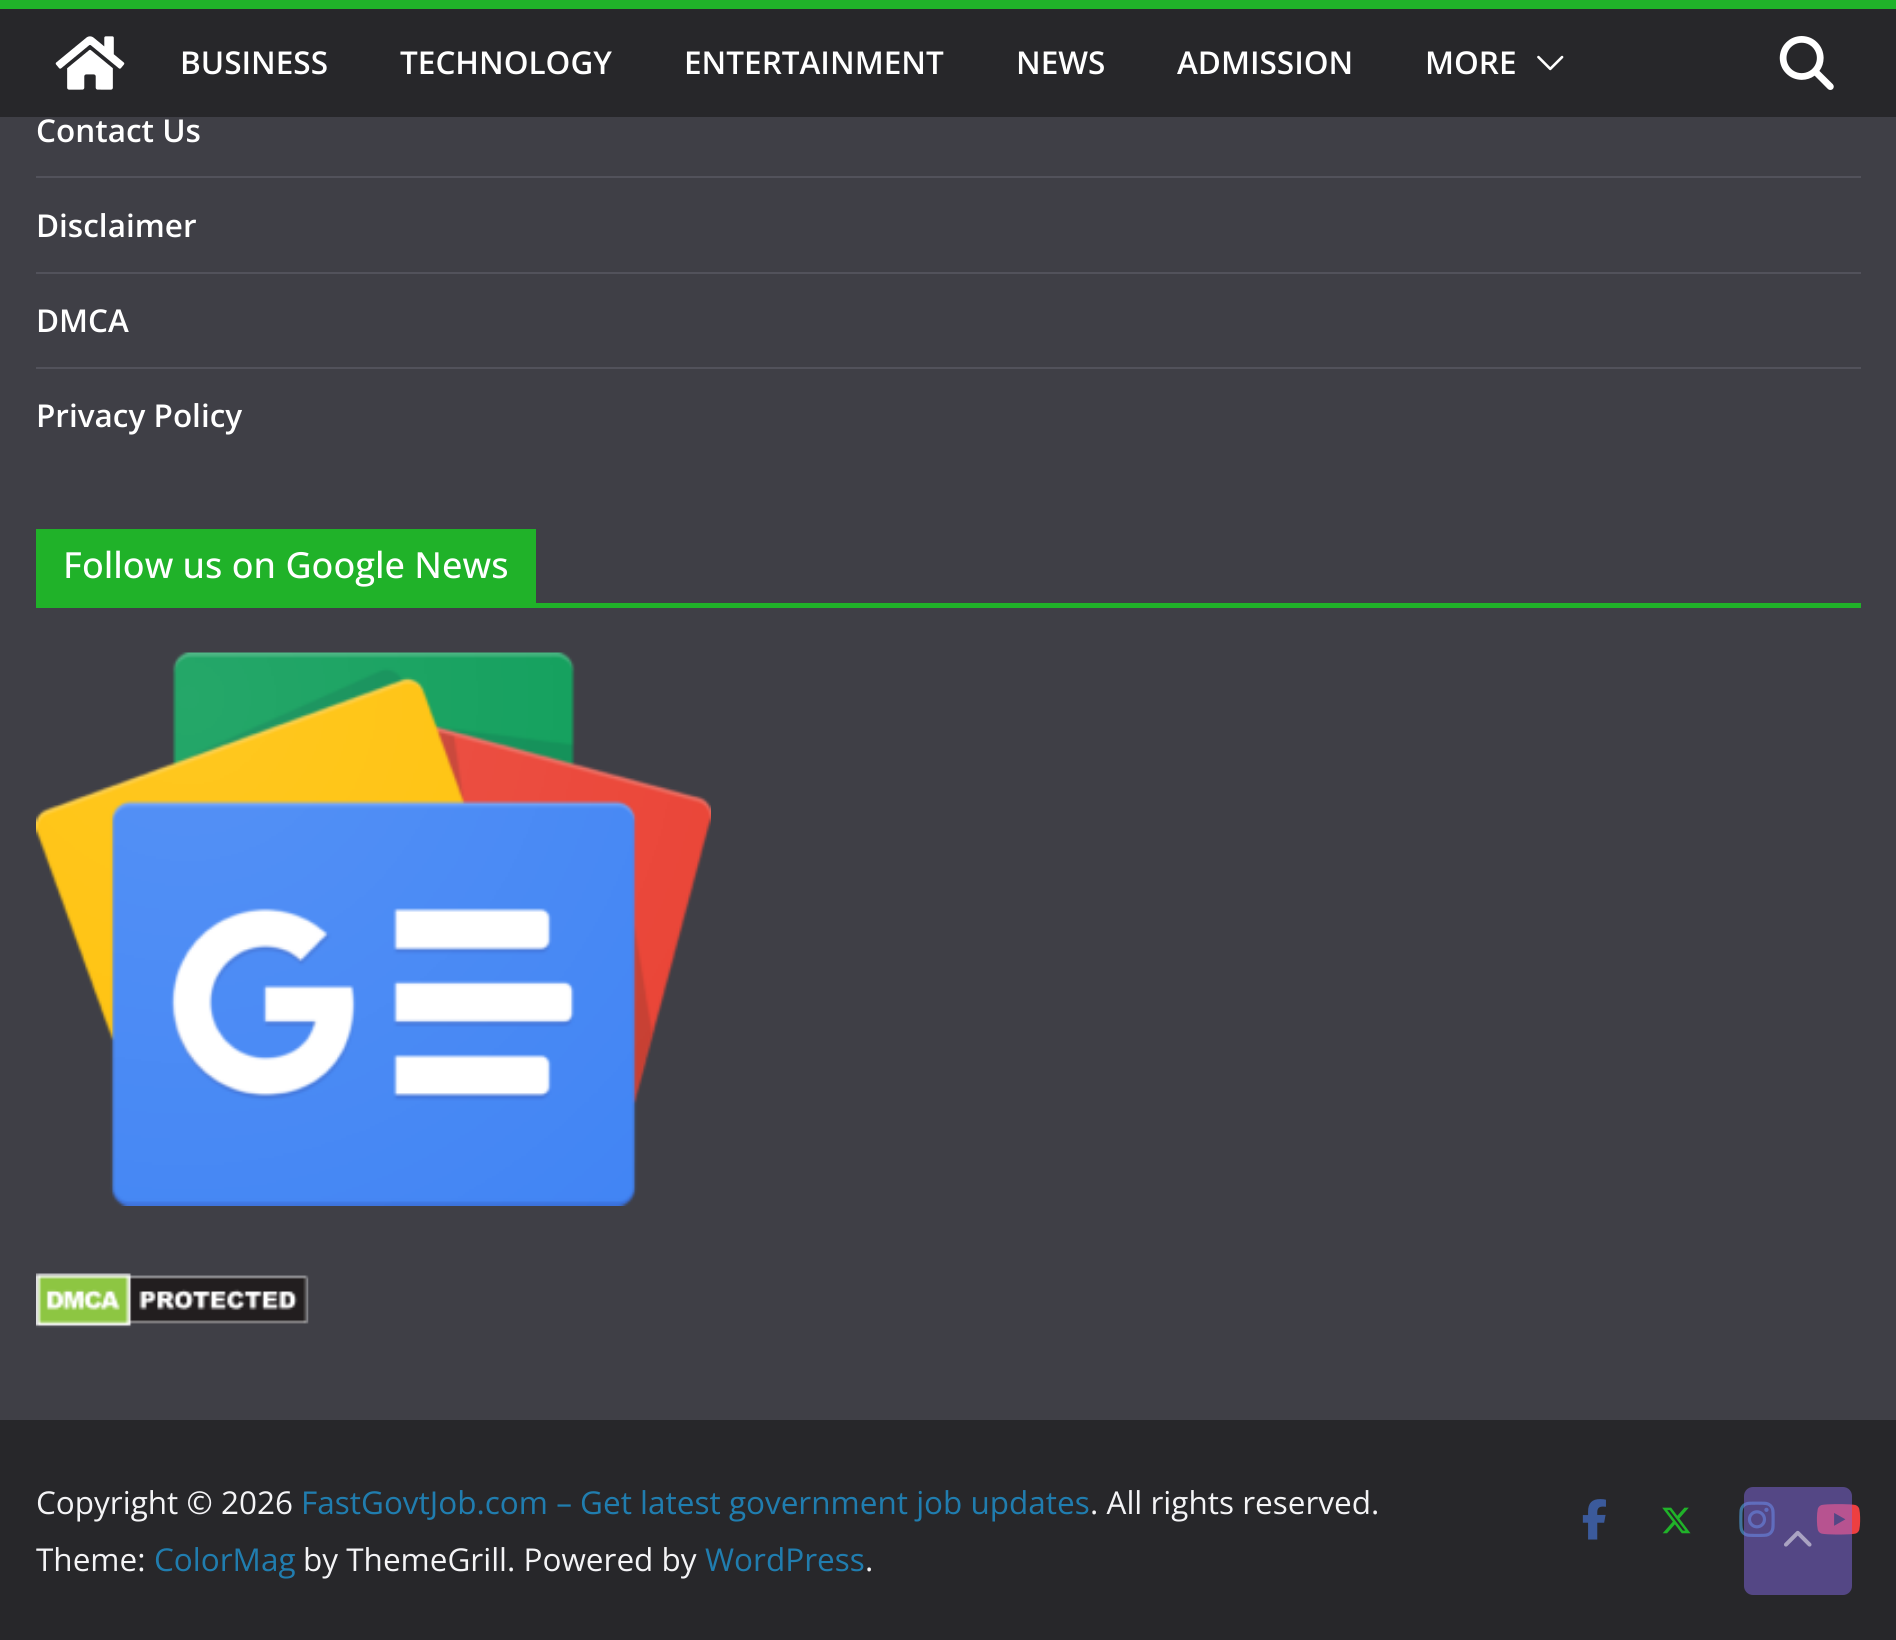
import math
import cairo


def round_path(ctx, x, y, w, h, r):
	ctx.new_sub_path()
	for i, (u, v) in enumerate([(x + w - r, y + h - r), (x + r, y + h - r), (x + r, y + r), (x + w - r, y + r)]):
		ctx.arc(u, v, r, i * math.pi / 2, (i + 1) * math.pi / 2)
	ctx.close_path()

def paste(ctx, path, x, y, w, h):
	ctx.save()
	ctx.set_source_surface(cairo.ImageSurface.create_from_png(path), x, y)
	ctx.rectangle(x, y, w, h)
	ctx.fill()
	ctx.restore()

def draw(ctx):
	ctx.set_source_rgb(0.247, 0.247, 0.275)
	ctx.paint()
	ctx.set_source_rgb(0.153, 0.153, 0.165)
	ctx.rectangle(0, 9, 1896, 108)
	ctx.fill()
	ctx.set_source_rgb(0.125, 0.698, 0.161)
	ctx.rectangle(0, 0, 1896, 9)
	ctx.fill()
	paste(ctx, 'media/1.png', 55, 36, 70, 54)
	ctx.select_font_face('Open Sans SemiBold')
	ctx.set_font_size(31.5)
	ctx.set_source_rgb(1, 1, 1)
	for x, y, s in [
		(180, 74, 'BUSINESS'),
		(400, 74, 'TECHNOLOGY'),
		(684, 74, 'ENTERTAINMENT'),
		(1016, 74, 'NEWS'),
		(1177, 74, 'ADMISSION'),
		(1425, 74, 'MORE'),
	]:
		ctx.move_to(x, y)
		ctx.show_text(s)
	paste(ctx, 'media/2.png', 1537, 55, 27, 16)
	paste(ctx, 'media/3.png', 1779, 36, 55, 54)
	ctx.set_source_rgb(0.322, 0.322, 0.357)
	ctx.rectangle(36, 176, 1825, 2)
	ctx.fill()
	ctx.set_source_rgb(1, 1, 1)
	ctx.move_to(36, 142)
	ctx.show_text('Contact Us')
	ctx.set_source_rgb(0.322, 0.322, 0.357)
	ctx.rectangle(36, 272, 1825, 2)
	ctx.fill()
	ctx.set_source_rgb(1, 1, 1)
	ctx.move_to(36, 237)
	ctx.show_text('Disclaimer')
	ctx.set_source_rgb(0.322, 0.322, 0.357)
	ctx.rectangle(36, 367, 1825, 2)
	ctx.fill()
	ctx.set_source_rgb(1, 1, 1)
	ctx.move_to(36, 332)
	ctx.show_text('DMCA')
	ctx.move_to(36, 427)
	ctx.show_text('Privacy Policy')
	ctx.set_source_rgb(0.125, 0.698, 0.161)
	ctx.rectangle(36, 603, 1825, 5)
	ctx.fill()
	ctx.rectangle(36, 529, 500, 74)
	ctx.fill()
	ctx.select_font_face('Open Sans Medium')
	ctx.set_font_size(36)
	ctx.set_source_rgb(1, 1, 1)
	ctx.move_to(63, 578)
	ctx.show_text('Follow us on Google News')
	paste(ctx, 'media/4.png', 36, 652, 675, 554)
	paste(ctx, 'media/5.png', 36, 1273, 273, 55)
	ctx.set_source_rgb(0.153, 0.153, 0.165)
	ctx.rectangle(0, 1420, 1896, 220)
	ctx.fill()
	ctx.select_font_face('Open Sans')
	ctx.set_font_size(31.5)
	ctx.set_source_rgb(0.957, 0.957, 0.961)
	ctx.move_to(36, 1514)
	ctx.show_text('Copyright © 2026')
	ctx.set_source_rgb(0.125, 0.49, 0.686)
	ctx.move_to(301, 1514)
	ctx.show_text('FastGovtJob.com – Get latest government job updates')
	ctx.set_source_rgb(0.957, 0.957, 0.961)
	ctx.move_to(1090, 1514)
	ctx.show_text('. All rights reserved.')
	ctx.move_to(36, 1571)
	ctx.show_text('Theme:')
	ctx.set_source_rgb(0.125, 0.49, 0.686)
	ctx.move_to(154, 1571)
	ctx.show_text('ColorMag')
	ctx.set_source_rgb(0.957, 0.957, 0.961)
	ctx.move_to(303, 1571)
	ctx.show_text('by ThemeGrill. Powered by')
	ctx.set_source_rgb(0.125, 0.49, 0.686)
	ctx.move_to(705, 1571)
	ctx.show_text('WordPress')
	ctx.set_source_rgb(0.957, 0.957, 0.961)
	ctx.move_to(865, 1571)
	ctx.show_text('.')
	paste(ctx, 'media/6.png', 1582, 1499, 24, 41)
	paste(ctx, 'media/7.png', 1662, 1507, 29, 27)
	paste(ctx, 'media/8.png', 1739, 1501, 36, 36)
	paste(ctx, 'media/9.png', 1816, 1504, 45, 31)
	ctx.set_source_rgba(0.51, 0.412, 0.875, 0.5)
	round_path(ctx, 1744, 1487, 108, 108, 9)
	ctx.fill()
	paste(ctx, 'media/10.png', 1784, 1530, 28, 17)


surface = cairo.ImageSurface(cairo.FORMAT_RGB24, 1896, 1640)
ctx = cairo.Context(surface)
options = cairo.FontOptions()
options.set_hint_metrics(cairo.HINT_METRICS_OFF)
options.set_hint_style(cairo.HINT_STYLE_NONE)
ctx.set_font_options(options)
ctx.set_miter_limit(4)
draw(ctx)
surface.write_to_png('image.png')
